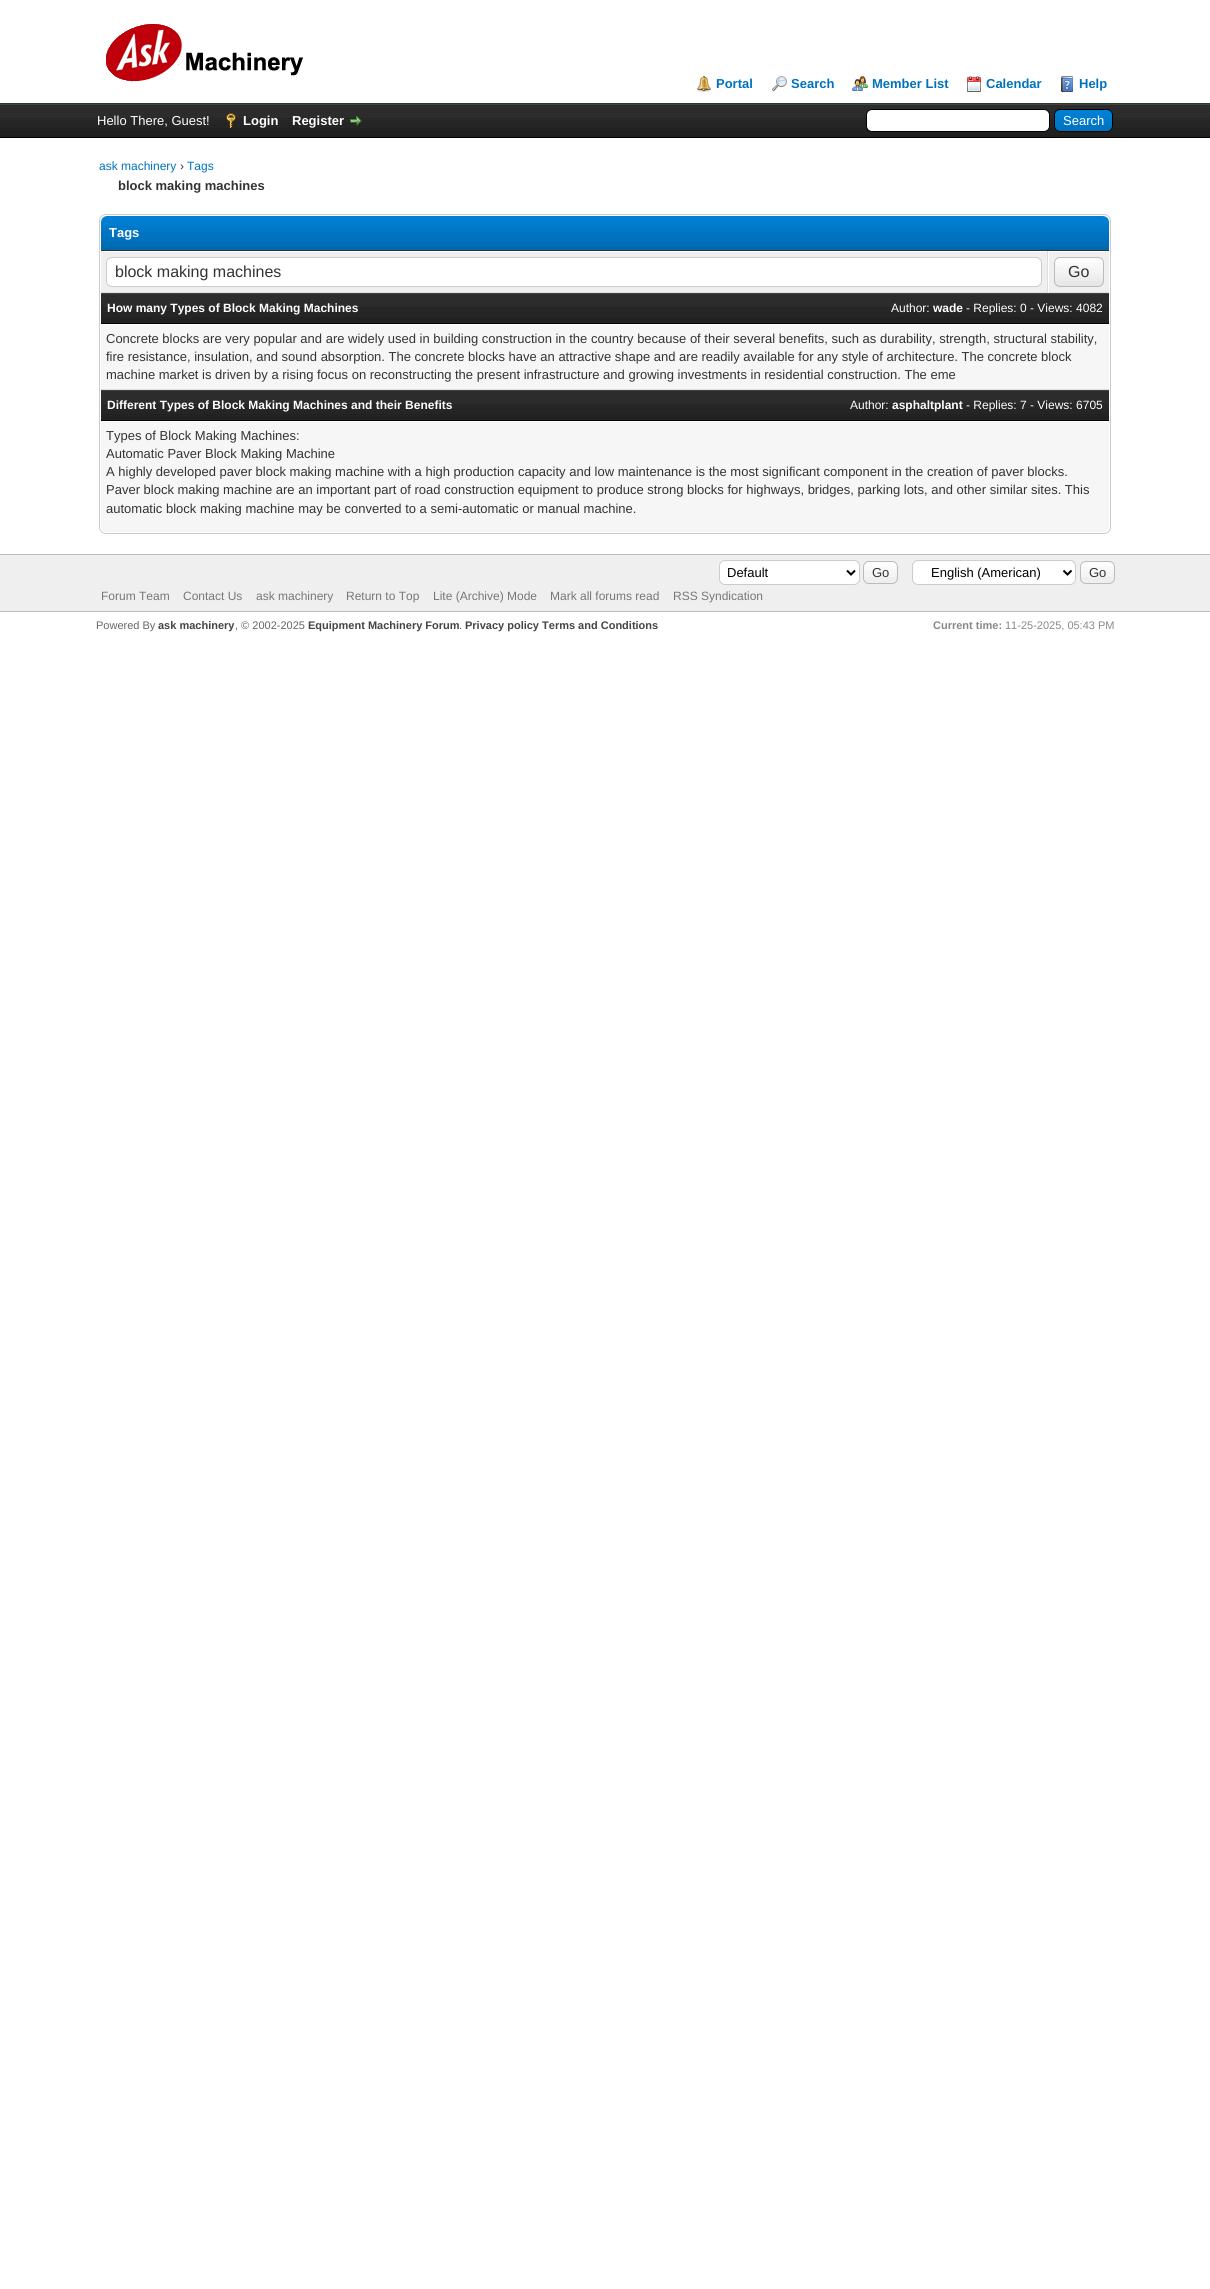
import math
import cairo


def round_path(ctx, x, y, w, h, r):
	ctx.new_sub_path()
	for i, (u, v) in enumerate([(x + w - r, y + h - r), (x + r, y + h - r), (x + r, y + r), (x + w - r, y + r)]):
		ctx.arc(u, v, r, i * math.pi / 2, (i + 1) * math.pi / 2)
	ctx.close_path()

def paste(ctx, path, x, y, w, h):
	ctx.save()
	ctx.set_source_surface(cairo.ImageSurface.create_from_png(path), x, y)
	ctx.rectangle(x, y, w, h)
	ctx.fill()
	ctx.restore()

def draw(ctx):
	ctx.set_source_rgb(1, 1, 1)
	ctx.paint()
	ctx.set_source_rgb(0.149, 0.235, 0.188)
	ctx.rectangle(0, 103, 1210, 1)
	ctx.fill()
	paste(ctx, 'media/1.png', 106, 24, 197, 58)
	paste(ctx, 'media/2.png', 697, 76, 14, 16)
	ctx.select_font_face('Liberation Sans', cairo.FONT_SLANT_NORMAL, cairo.FONT_WEIGHT_BOLD)
	ctx.set_font_size(13)
	ctx.set_source_rgb(0, 0.447, 0.737)
	ctx.move_to(716, 88)
	ctx.show_text('Portal')
	paste(ctx, 'media/3.png', 772, 76, 15, 15)
	ctx.move_to(791, 88)
	ctx.show_text('Search')
	paste(ctx, 'media/4.png', 852, 76, 16, 15)
	ctx.move_to(872, 88)
	ctx.show_text('Member List')
	paste(ctx, 'media/5.png', 967, 76, 14, 16)
	ctx.move_to(986, 88)
	ctx.show_text('Calendar')
	paste(ctx, 'media/6.png', 1061, 76, 12, 16)
	ctx.move_to(1079, 88)
	ctx.show_text('Help')
	paste(ctx, 'media/7.png', 0, 105, 1210, 32)
	ctx.set_source_rgb(0.267, 0.267, 0.267)
	ctx.rectangle(0, 104, 1210, 1)
	ctx.fill()
	ctx.set_source_rgb(0, 0, 0)
	ctx.rectangle(0, 137, 1210, 1)
	ctx.fill()
	ctx.select_font_face('Liberation Sans')
	ctx.set_source_rgb(1, 1, 1)
	ctx.move_to(97, 125)
	ctx.show_text('Hello There, Guest!')
	paste(ctx, 'media/8.png', 226, 113, 10, 15)
	ctx.select_font_face('Liberation Sans', cairo.FONT_SLANT_NORMAL, cairo.FONT_WEIGHT_BOLD)
	ctx.move_to(243, 125)
	ctx.show_text('Login')
	ctx.move_to(292, 125)
	ctx.show_text('Register')
	paste(ctx, 'media/9.png', 350, 116, 12, 10)
	round_path(ctx, 866.5, 109.5, 183, 22, 5.5)
	ctx.fill_preserve()
	ctx.set_source_rgb(0, 0, 0)
	ctx.set_line_width(1)
	ctx.stroke()
	paste(ctx, 'media/10.png', 1054, 110, 59, 22)
	round_path(ctx, 1054.5, 109.5, 58, 22, 5.5)
	ctx.stroke()
	ctx.select_font_face('Liberation Sans')
	ctx.set_source_rgb(1, 1, 1)
	ctx.move_to(1063, 125)
	ctx.show_text('Search')
	ctx.set_font_size(12)
	ctx.set_source_rgb(0, 0.447, 0.737)
	ctx.move_to(99, 170)
	ctx.show_text('ask machinery')
	ctx.set_source_rgb(0.2, 0.2, 0.2)
	ctx.move_to(180, 170)
	ctx.show_text('›')
	ctx.set_source_rgb(0, 0.447, 0.737)
	ctx.move_to(187, 170)
	ctx.show_text('Tags')
	ctx.select_font_face('Liberation Sans', cairo.FONT_SLANT_NORMAL, cairo.FONT_WEIGHT_BOLD)
	ctx.set_font_size(13)
	ctx.set_source_rgb(0.2, 0.2, 0.2)
	ctx.move_to(118, 190)
	ctx.show_text('block making machines')
	round_path(ctx, 99.5, 214.5, 1011, 319, 6.5)
	ctx.set_source_rgb(0.8, 0.8, 0.8)
	ctx.stroke()
	paste(ctx, 'media/11.png', 101, 216, 1008, 34)
	ctx.set_source_rgb(0.149, 0.235, 0.188)
	ctx.rectangle(101, 250, 1008, 1)
	ctx.fill()
	ctx.set_source_rgb(1, 1, 1)
	ctx.move_to(109, 237)
	ctx.show_text('Tags')
	ctx.set_source_rgb(0.937, 0.937, 0.937)
	ctx.rectangle(101, 252, 946, 40)
	ctx.fill()
	ctx.set_source_rgb(0.867, 0.867, 0.867)
	ctx.rectangle(1047, 251, 1, 42)
	ctx.rectangle(101, 292, 1008, 1)
	ctx.fill()
	ctx.set_source_rgb(1, 1, 1)
	round_path(ctx, 106.5, 257.5, 935, 29, 5.5)
	ctx.fill_preserve()
	ctx.set_source_rgb(0.8, 0.8, 0.8)
	ctx.stroke()
	ctx.select_font_face('Liberation Sans')
	ctx.set_font_size(16)
	ctx.set_source_rgb(0.2, 0.2, 0.2)
	ctx.move_to(115, 277)
	ctx.show_text('block making machines')
	ctx.set_source_rgb(0.937, 0.937, 0.937)
	ctx.rectangle(1049, 252, 60, 40)
	ctx.fill()
	ctx.set_source_rgb(1, 1, 1)
	ctx.rectangle(1048, 292, 1, 1)
	ctx.fill()
	paste(ctx, 'media/12.png', 1054, 258, 50, 29)
	round_path(ctx, 1054.5, 257.5, 49, 29, 5.5)
	ctx.set_source_rgb(0.733, 0.733, 0.733)
	ctx.stroke()
	ctx.set_source_rgb(0.2, 0.2, 0.2)
	ctx.move_to(1068, 277)
	ctx.show_text('Go')
	paste(ctx, 'media/13.png', 101, 294, 1008, 29)
	ctx.set_source_rgb(0.267, 0.267, 0.267)
	ctx.rectangle(101, 293, 1008, 1)
	ctx.fill()
	ctx.set_source_rgb(0, 0, 0)
	ctx.rectangle(101, 323, 1008, 1)
	ctx.fill()
	ctx.select_font_face('Liberation Sans', cairo.FONT_SLANT_NORMAL, cairo.FONT_WEIGHT_BOLD)
	ctx.set_font_size(12)
	ctx.set_source_rgb(1, 1, 1)
	ctx.move_to(107, 312)
	ctx.show_text('How many Types of Block Making Machines')
	ctx.select_font_face('Liberation Sans')
	ctx.move_to(891, 312)
	ctx.show_text('Author:')
	ctx.select_font_face('Liberation Sans', cairo.FONT_SLANT_NORMAL, cairo.FONT_WEIGHT_BOLD)
	ctx.move_to(933, 312)
	ctx.show_text('wade')
	ctx.select_font_face('Liberation Sans')
	ctx.move_to(966, 312)
	ctx.show_text('- Replies: 0 - Views: 4082')
	ctx.set_source_rgb(0.961, 0.961, 0.961)
	ctx.rectangle(101, 325, 1008, 64)
	ctx.fill()
	ctx.set_source_rgb(0.867, 0.867, 0.867)
	ctx.rectangle(101, 389, 1008, 1)
	ctx.fill()
	ctx.set_font_size(13)
	ctx.set_source_rgb(0.2, 0.2, 0.2)
	for x, y, s in [
		(106, 343, 'Concrete blocks are very popular and are widely used in building construction in the country because of their several benefits, such as durability, strength, structural stability,'),
		(106, 361, 'fire resistance, insulation, and sound absorption. The concrete blocks have an attractive shape and are readily available for any style of architecture. The concrete block'),
		(106, 379, 'machine market is driven by a rising focus on reconstructing the present infrastructure and growing investments in residential construction. The eme'),
	]:
		ctx.move_to(x, y)
		ctx.show_text(s)
	paste(ctx, 'media/13.png', 101, 391, 1008, 29)
	ctx.set_source_rgb(0.267, 0.267, 0.267)
	ctx.rectangle(101, 390, 1008, 1)
	ctx.fill()
	ctx.set_source_rgb(0, 0, 0)
	ctx.rectangle(101, 420, 1008, 1)
	ctx.fill()
	ctx.select_font_face('Liberation Sans', cairo.FONT_SLANT_NORMAL, cairo.FONT_WEIGHT_BOLD)
	ctx.set_font_size(12)
	ctx.set_source_rgb(1, 1, 1)
	ctx.move_to(107, 409)
	ctx.show_text('Different Types of Block Making Machines and their Benefits')
	ctx.select_font_face('Liberation Sans')
	ctx.move_to(850, 409)
	ctx.show_text('Author:')
	ctx.select_font_face('Liberation Sans', cairo.FONT_SLANT_NORMAL, cairo.FONT_WEIGHT_BOLD)
	ctx.move_to(892, 409)
	ctx.show_text('asphaltplant')
	ctx.select_font_face('Liberation Sans')
	ctx.move_to(966, 409)
	ctx.show_text('- Replies: 7 - Views: 6705')
	ctx.set_source_rgb(0.961, 0.961, 0.961)
	ctx.new_path()
	ctx.move_to(101, 421)
	ctx.line_to(1109, 421)
	ctx.line_to(1109, 526)
	ctx.curve_to(1109, 529.5, 1106.5, 532, 1103, 532)
	ctx.line_to(107, 532)
	ctx.curve_to(103.5, 532, 101, 529.5, 101, 526)
	ctx.close_path()
	ctx.fill()
	ctx.set_source_rgb(1, 1, 1)
	ctx.rectangle(101, 421, 1008, 1)
	ctx.fill()
	ctx.set_font_size(13)
	ctx.set_source_rgb(0.2, 0.2, 0.2)
	for x, y, s in [
		(106, 440, 'Types of Block Making Machines:'),
		(106, 458, 'Automatic Paver Block Making Machine'),
		(106, 476, 'A highly developed paver block making machine with a high production capacity and low maintenance is the most significant component in the creation of paver blocks.'),
		(106, 494, 'Paver block making machine are an important part of road construction equipment to produce strong blocks for highways, bridges, parking lots, and other similar sites. This'),
		(106, 513, 'automatic block making machine may be converted to a semi-automatic or manual machine.'),
	]:
		ctx.move_to(x, y)
		ctx.show_text(s)
	ctx.set_source_rgb(0.937, 0.937, 0.937)
	ctx.rectangle(0, 555, 1210, 56)
	ctx.fill()
	ctx.set_source_rgb(0.733, 0.733, 0.733)
	ctx.rectangle(0, 554, 1210, 1)
	ctx.rectangle(0, 611, 1210, 1)
	ctx.fill()
	ctx.set_source_rgb(1, 1, 1)
	round_path(ctx, 719.5, 560.5, 140, 24, 5.5)
	ctx.fill_preserve()
	ctx.set_source_rgb(0.8, 0.8, 0.8)
	ctx.stroke()
	ctx.new_path()
	ctx.move_to(847, 570.5)
	ctx.line_to(851, 574.5)
	ctx.line_to(855, 570.5)
	ctx.set_source_rgb(0, 0, 0)
	ctx.set_line_width(2)
	ctx.stroke()
	ctx.move_to(727, 577)
	ctx.show_text('Default')
	paste(ctx, 'media/14.png', 863, 562, 35, 15)
	round_path(ctx, 863.5, 561.5, 34, 22, 5.5)
	ctx.set_source_rgb(0.733, 0.733, 0.733)
	ctx.set_line_width(1)
	ctx.stroke()
	ctx.set_source_rgb(0.2, 0.2, 0.2)
	ctx.move_to(872, 577)
	ctx.show_text('Go')
	ctx.set_source_rgb(1, 1, 1)
	round_path(ctx, 912.5, 560.5, 163, 24, 5.5)
	ctx.fill_preserve()
	ctx.set_source_rgb(0.8, 0.8, 0.8)
	ctx.stroke()
	ctx.new_path()
	ctx.move_to(1063.5, 570.5)
	ctx.line_to(1067.5, 574.5)
	ctx.line_to(1071.5, 570.5)
	ctx.set_source_rgb(0, 0, 0)
	ctx.set_line_width(2)
	ctx.stroke()
	ctx.move_to(931, 577)
	ctx.show_text('English (American)')
	paste(ctx, 'media/14.png', 1080, 562, 35, 15)
	round_path(ctx, 1080.5, 561.5, 34, 22, 5.5)
	ctx.set_source_rgb(0.733, 0.733, 0.733)
	ctx.set_line_width(1)
	ctx.stroke()
	ctx.set_source_rgb(0.2, 0.2, 0.2)
	ctx.move_to(1089, 577)
	ctx.show_text('Go')
	ctx.set_font_size(12)
	ctx.set_source_rgb(0.467, 0.467, 0.467)
	for x, y, s in [
		(101, 600, 'Forum Team'),
		(183, 600, 'Contact Us'),
		(256, 600, 'ask machinery'),
		(346, 600, 'Return to Top'),
		(433, 600, 'Lite (Archive) Mode'),
		(550, 600, 'Mark all forums read'),
		(673, 600, 'RSS Syndication'),
	]:
		ctx.move_to(x, y)
		ctx.show_text(s)
	ctx.set_font_size(11)
	ctx.set_source_rgb(0.4, 0.4, 0.4)
	ctx.move_to(96, 629)
	ctx.show_text('Powered By')
	ctx.select_font_face('Liberation Sans', cairo.FONT_SLANT_NORMAL, cairo.FONT_WEIGHT_BOLD)
	ctx.set_source_rgb(0.267, 0.267, 0.267)
	ctx.move_to(158, 629)
	ctx.show_text('ask machinery')
	ctx.select_font_face('Liberation Sans')
	ctx.set_source_rgb(0.4, 0.4, 0.4)
	ctx.move_to(235, 629)
	ctx.show_text(', © 2002-2025')
	ctx.select_font_face('Liberation Sans', cairo.FONT_SLANT_NORMAL, cairo.FONT_WEIGHT_BOLD)
	ctx.set_source_rgb(0.267, 0.267, 0.267)
	ctx.move_to(308, 629)
	ctx.show_text('Equipment Machinery Forum')
	ctx.select_font_face('Liberation Sans')
	ctx.set_source_rgb(0.4, 0.4, 0.4)
	ctx.move_to(459, 629)
	ctx.show_text('.')
	ctx.select_font_face('Liberation Sans', cairo.FONT_SLANT_NORMAL, cairo.FONT_WEIGHT_BOLD)
	ctx.set_source_rgb(0.267, 0.267, 0.267)
	ctx.move_to(465, 629)
	ctx.show_text('Privacy policy Terms and Conditions')
	ctx.set_source_rgb(0.533, 0.533, 0.533)
	ctx.move_to(933, 629)
	ctx.show_text('Current time:')
	ctx.select_font_face('Liberation Sans')
	ctx.move_to(1005, 629)
	ctx.show_text('11-25-2025, 05:43 PM')


surface = cairo.ImageSurface(cairo.FORMAT_RGB24, 1210, 2289)
ctx = cairo.Context(surface)
options = cairo.FontOptions()
options.set_hint_metrics(cairo.HINT_METRICS_OFF)
options.set_hint_style(cairo.HINT_STYLE_NONE)
ctx.set_font_options(options)
ctx.set_miter_limit(4)
draw(ctx)
surface.write_to_png('image.png')
